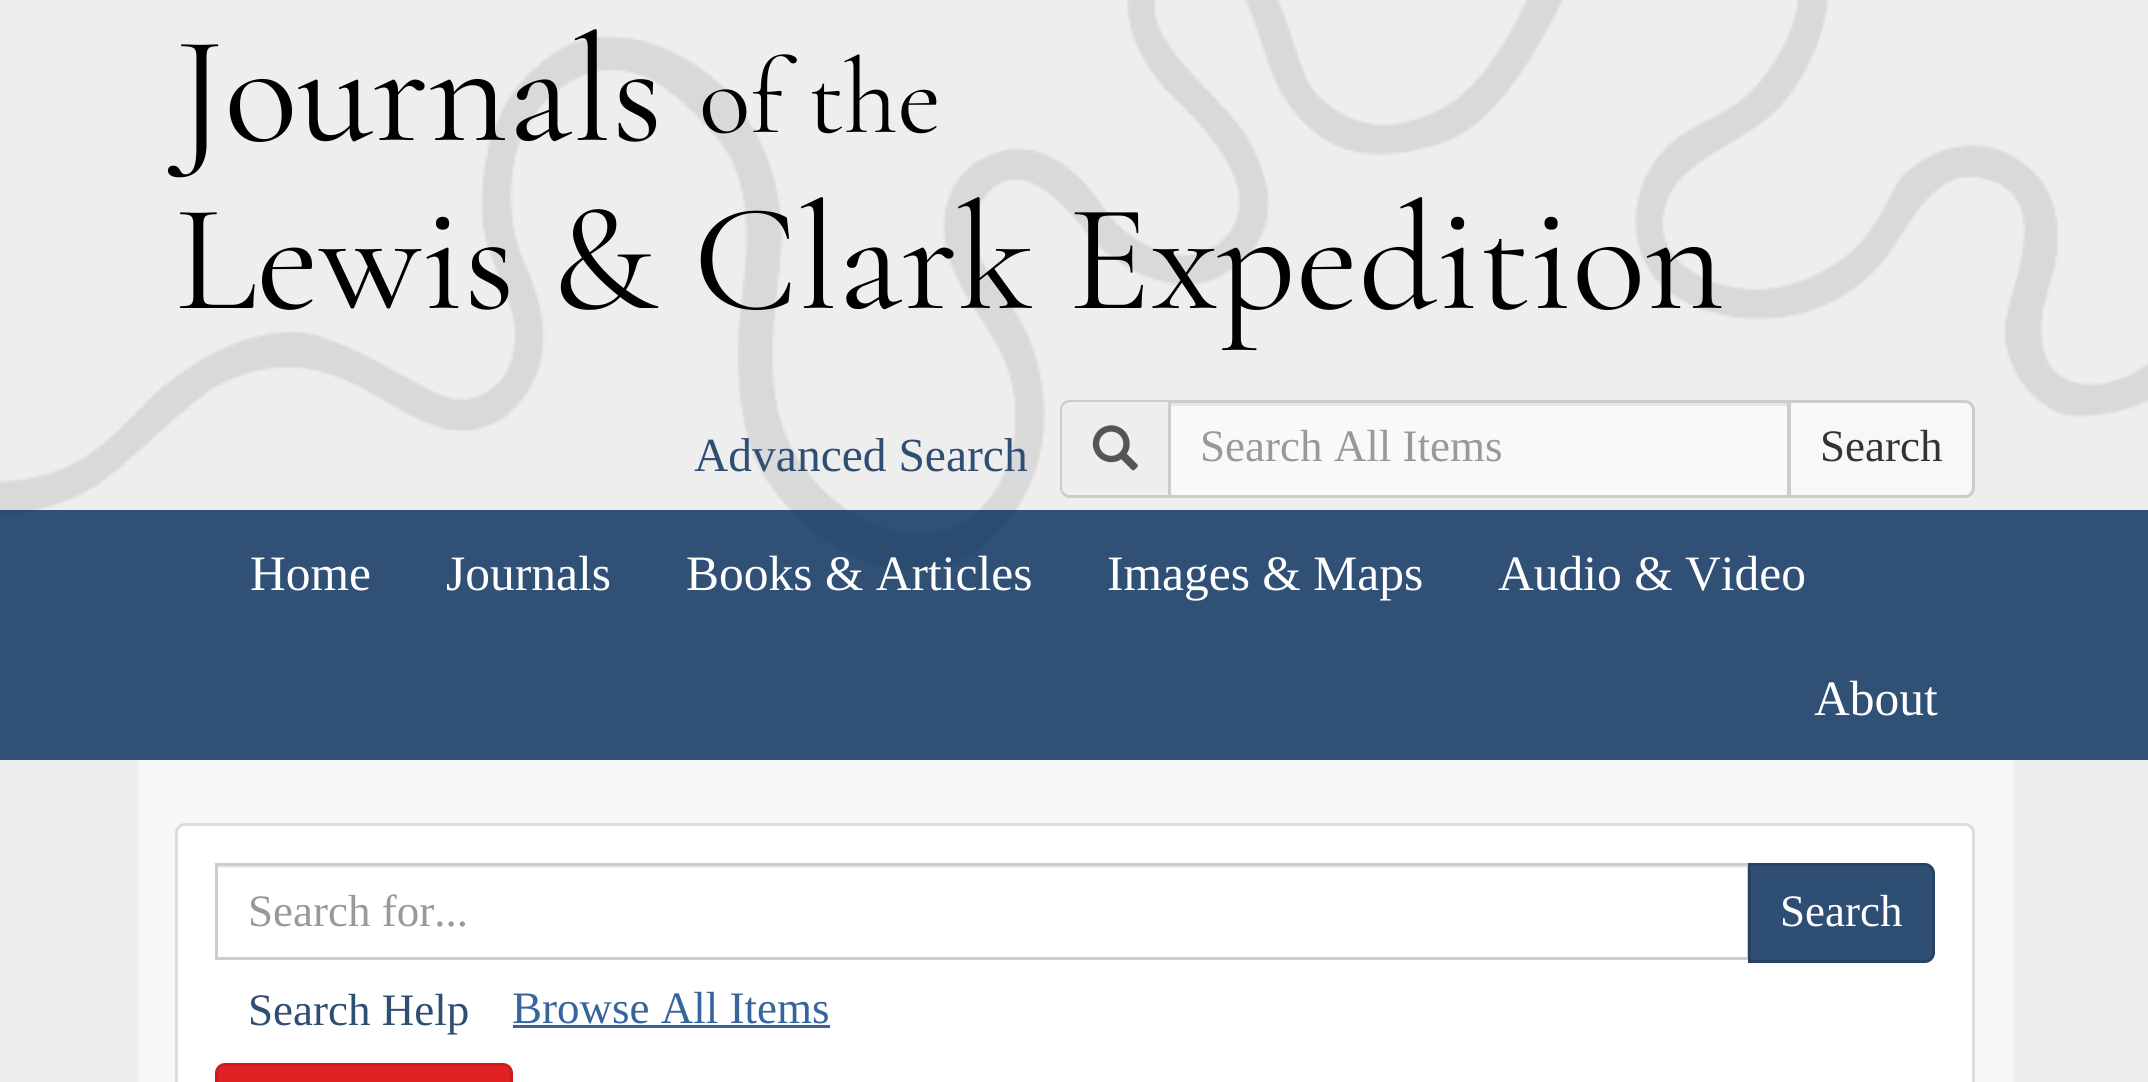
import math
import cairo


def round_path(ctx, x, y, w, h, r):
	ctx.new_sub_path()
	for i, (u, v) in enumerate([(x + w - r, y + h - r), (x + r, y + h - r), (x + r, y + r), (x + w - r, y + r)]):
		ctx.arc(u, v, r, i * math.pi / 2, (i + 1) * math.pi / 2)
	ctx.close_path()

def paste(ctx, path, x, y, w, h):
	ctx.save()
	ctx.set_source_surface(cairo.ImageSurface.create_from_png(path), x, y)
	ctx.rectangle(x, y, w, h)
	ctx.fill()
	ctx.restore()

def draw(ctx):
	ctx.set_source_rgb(0.933, 0.933, 0.933)
	ctx.paint()
	paste(ctx, 'media/1.png', 0, 0, 2148, 571)
	ctx.select_font_face('Cormorant Garamond Light')
	ctx.set_font_size(153)
	ctx.set_source_rgb(0, 0, 0)
	ctx.move_to(175, 140)
	ctx.show_text('Journals')
	ctx.set_font_size(107)
	ctx.move_to(699, 132)
	ctx.show_text('of the')
	ctx.set_font_size(153)
	ctx.move_to(175, 308)
	ctx.show_text('Lewis & Clark Expedition')
	ctx.select_font_face('Liberation Serif')
	ctx.set_font_size(47.5)
	ctx.set_source_rgb(0.18, 0.306, 0.455)
	ctx.move_to(694, 471)
	ctx.show_text('Advanced Search')
	ctx.set_source_rgb(0.8, 0.8, 0.8)
	ctx.set_fill_rule(cairo.FILL_RULE_EVEN_ODD)
	ctx.new_path()
	ctx.move_to(1070, 400)
	ctx.line_to(1168, 400)
	ctx.line_to(1168, 498)
	ctx.line_to(1070, 498)
	ctx.curve_to(1064, 498, 1060, 493, 1060, 488)
	ctx.line_to(1060, 410)
	ctx.curve_to(1060, 404, 1064, 400, 1070, 400)
	ctx.close_path()
	ctx.move_to(1070, 402)
	ctx.line_to(1168, 402)
	ctx.line_to(1168, 495)
	ctx.line_to(1070, 495)
	ctx.curve_to(1066, 495, 1062, 492, 1062, 488)
	ctx.line_to(1062, 410)
	ctx.curve_to(1062, 406, 1066, 402, 1070, 402)
	ctx.close_path()
	ctx.fill()
	paste(ctx, 'media/2.png', 1092, 425, 46, 46)
	ctx.set_source_rgb(0.973, 0.973, 0.973)
	ctx.rectangle(1171, 406, 616, 89)
	ctx.fill()
	ctx.set_source_rgb(0.898, 0.898, 0.898)
	ctx.rectangle(1170, 403, 618, 3)
	ctx.fill()
	ctx.rectangle(1169.5, 401.5, 619, 95)
	ctx.set_source_rgb(0.8, 0.8, 0.8)
	ctx.set_line_width(3)
	ctx.stroke()
	ctx.set_font_size(45)
	ctx.set_source_rgb(0.6, 0.6, 0.6)
	ctx.move_to(1200, 461)
	ctx.show_text('Search All Items')
	ctx.set_source_rgba(1, 1, 1, 0.6)
	ctx.new_path()
	ctx.move_to(1789.5, 401.5)
	ctx.line_to(1965, 401.5)
	ctx.curve_to(1969.5, 401.5, 1973.5, 405.5, 1973.5, 410)
	ctx.line_to(1973.5, 488)
	ctx.curve_to(1973.5, 492.5, 1969.5, 496.5, 1965, 496.5)
	ctx.line_to(1789.5, 496.5)
	ctx.close_path()
	ctx.fill_preserve()
	ctx.set_source_rgb(0.8, 0.8, 0.8)
	ctx.stroke()
	ctx.set_source_rgb(0.2, 0.2, 0.2)
	ctx.move_to(1820, 461)
	ctx.show_text('Search')
	ctx.set_source_rgb(0.965, 0.965, 0.965)
	ctx.rectangle(138, 755, 1875, 327)
	ctx.fill()
	ctx.set_source_rgba(0, 0.161, 0.337, 0.8)
	ctx.rectangle(0, 510, 2148, 250)
	ctx.fill()
	ctx.set_font_size(49.5)
	ctx.set_source_rgb(1, 1, 1)
	for x, y, s in [
		(250, 590, 'Home'),
		(446, 590, 'Journals'),
		(686, 590, 'Books & Articles'),
		(1107, 590, 'Images & Maps'),
		(1498, 590, 'Audio & Video'),
		(1814, 715, 'About'),
	]:
		ctx.move_to(x, y)
		ctx.show_text(s)
	round_path(ctx, 176.5, 824.5, 1797, 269, 8.5)
	ctx.fill_preserve()
	ctx.set_source_rgb(0.867, 0.867, 0.867)
	ctx.stroke()
	ctx.set_source_rgb(0.925, 0.925, 0.925)
	ctx.rectangle(218, 866, 1530, 2)
	ctx.fill()
	ctx.rectangle(216.5, 864.5, 1532, 94)
	ctx.set_source_rgb(0.8, 0.8, 0.8)
	ctx.stroke()
	ctx.set_font_size(45)
	ctx.set_source_rgb(0.6, 0.6, 0.6)
	ctx.move_to(248, 926)
	ctx.show_text('Search for...')
	ctx.set_source_rgb(0.18, 0.306, 0.455)
	ctx.new_path()
	ctx.move_to(1749.5, 864.5)
	ctx.line_to(1925, 864.5)
	ctx.curve_to(1929.5, 864.5, 1933.5, 868.5, 1933.5, 873)
	ctx.line_to(1933.5, 953)
	ctx.curve_to(1933.5, 957.5, 1929.5, 961.5, 1925, 961.5)
	ctx.line_to(1749.5, 961.5)
	ctx.close_path()
	ctx.fill_preserve()
	ctx.set_source_rgb(0.153, 0.259, 0.384)
	ctx.stroke()
	ctx.set_source_rgb(1, 1, 1)
	ctx.move_to(1780, 926)
	ctx.show_text('Search')
	ctx.set_source_rgb(0.18, 0.306, 0.455)
	ctx.move_to(248, 1025)
	ctx.show_text('Search Help')
	ctx.set_source_rgb(0.212, 0.396, 0.612)
	ctx.move_to(512, 1023)
	ctx.show_text('Browse All Items')
	ctx.rectangle(513, 1025, 317, 3)
	ctx.fill()
	ctx.set_source_rgb(0.882, 0.129, 0.133)
	round_path(ctx, 216.5, 1064.5, 295, 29, 8.5)
	ctx.fill_preserve()
	ctx.set_source_rgb(0.804, 0.11, 0.114)
	ctx.stroke()


surface = cairo.ImageSurface(cairo.FORMAT_RGB24, 2148, 1082)
ctx = cairo.Context(surface)
options = cairo.FontOptions()
options.set_hint_metrics(cairo.HINT_METRICS_OFF)
options.set_hint_style(cairo.HINT_STYLE_NONE)
ctx.set_font_options(options)
ctx.set_miter_limit(4)
draw(ctx)
surface.write_to_png('image.png')
